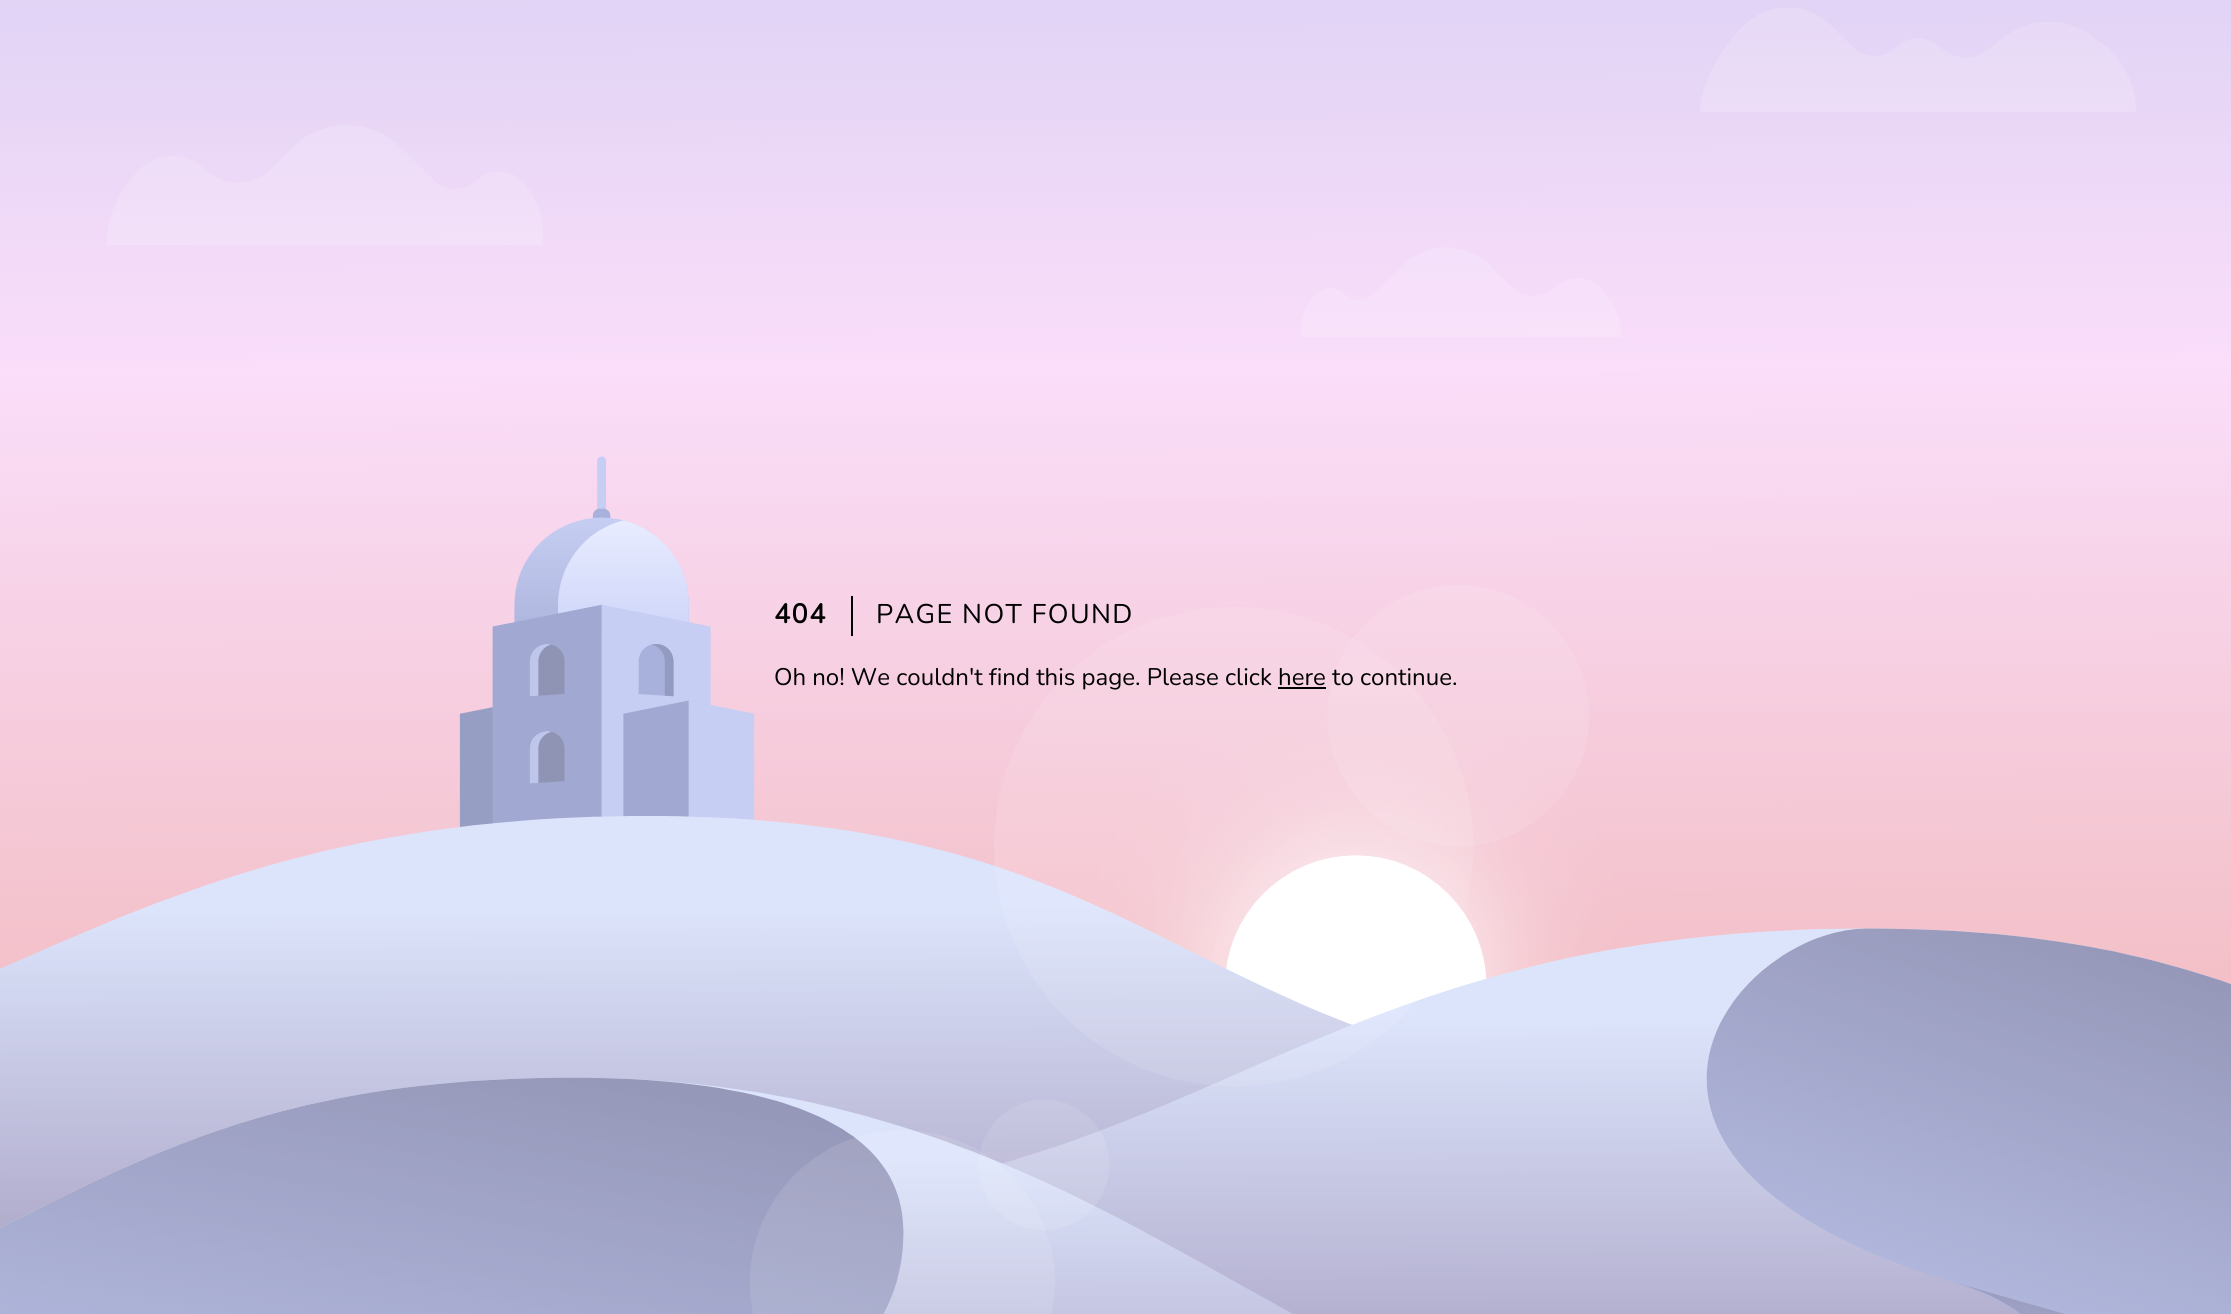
import math
import cairo


def write_spaced(ctx, x, y, s, letter, word):
	ctx.move_to(x, y)
	for ch in s:
		ctx.show_text(ch)
		ctx.rel_move_to(letter + word * (ch == ' '), 0)

def paste(ctx, path, x, y, w, h):
	ctx.save()
	ctx.set_source_surface(cairo.ImageSurface.create_from_png(path), x, y)
	ctx.rectangle(x, y, w, h)
	ctx.fill()
	ctx.restore()

def draw(ctx):
	ctx.set_source_rgb(1, 1, 1)
	ctx.paint()
	paste(ctx, 'media/1.png', 0, 0, 2231, 1314)
	ctx.set_source_rgb(0, 0, 0)
	ctx.rectangle(851, 596, 2, 40)
	ctx.fill()
	ctx.select_font_face('Nunito', cairo.FONT_SLANT_NORMAL, cairo.FONT_WEIGHT_BOLD)
	ctx.set_font_size(27)
	write_spaced(ctx, 774, 623, '404', 1.4, 0)
	ctx.select_font_face('Nunito ExtraLight')
	write_spaced(ctx, 876, 623, 'PAGE NOT FOUND', 1.4, 0)
	ctx.set_font_size(24)
	ctx.move_to(774, 685)
	ctx.show_text('Oh no! We couldn\'t find this page. Please click here to continue.')
	ctx.rectangle(1278, 687, 48, 2)
	ctx.fill()


surface = cairo.ImageSurface(cairo.FORMAT_RGB24, 2231, 1314)
ctx = cairo.Context(surface)
options = cairo.FontOptions()
options.set_hint_metrics(cairo.HINT_METRICS_OFF)
options.set_hint_style(cairo.HINT_STYLE_NONE)
ctx.set_font_options(options)
ctx.set_miter_limit(4)
draw(ctx)
surface.write_to_png('image.png')
